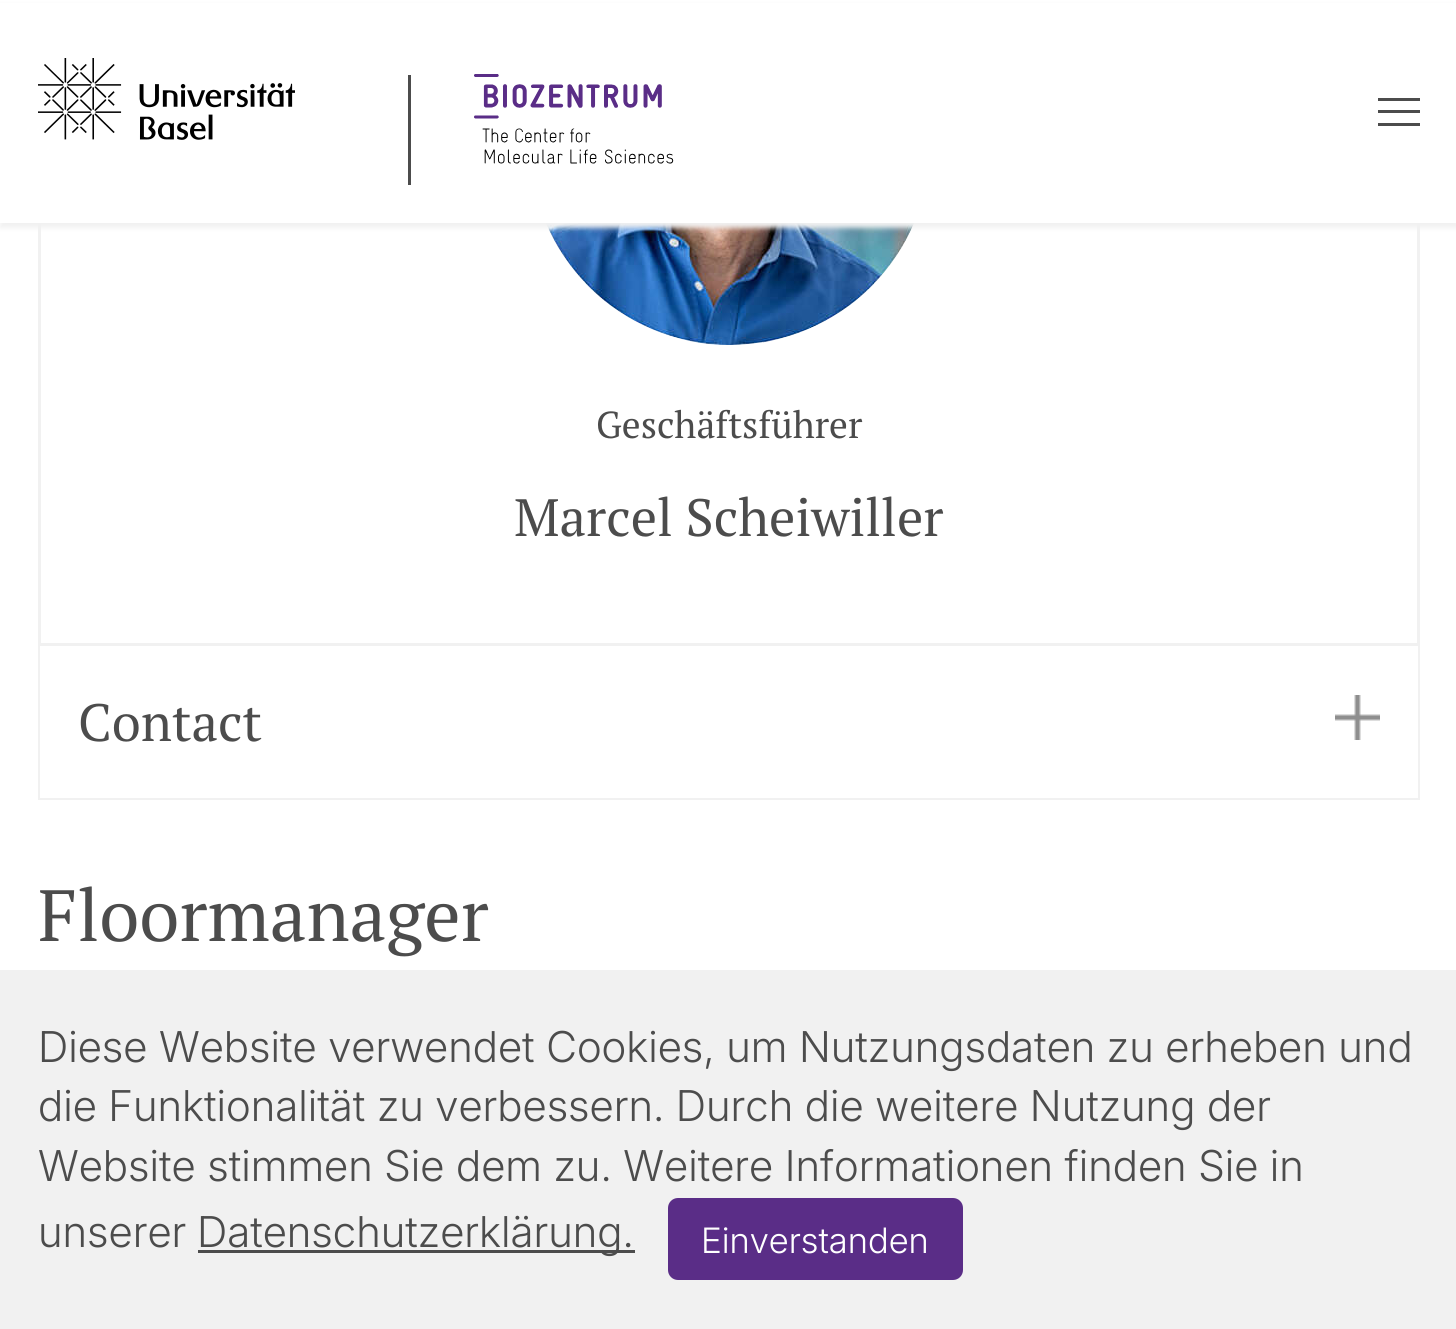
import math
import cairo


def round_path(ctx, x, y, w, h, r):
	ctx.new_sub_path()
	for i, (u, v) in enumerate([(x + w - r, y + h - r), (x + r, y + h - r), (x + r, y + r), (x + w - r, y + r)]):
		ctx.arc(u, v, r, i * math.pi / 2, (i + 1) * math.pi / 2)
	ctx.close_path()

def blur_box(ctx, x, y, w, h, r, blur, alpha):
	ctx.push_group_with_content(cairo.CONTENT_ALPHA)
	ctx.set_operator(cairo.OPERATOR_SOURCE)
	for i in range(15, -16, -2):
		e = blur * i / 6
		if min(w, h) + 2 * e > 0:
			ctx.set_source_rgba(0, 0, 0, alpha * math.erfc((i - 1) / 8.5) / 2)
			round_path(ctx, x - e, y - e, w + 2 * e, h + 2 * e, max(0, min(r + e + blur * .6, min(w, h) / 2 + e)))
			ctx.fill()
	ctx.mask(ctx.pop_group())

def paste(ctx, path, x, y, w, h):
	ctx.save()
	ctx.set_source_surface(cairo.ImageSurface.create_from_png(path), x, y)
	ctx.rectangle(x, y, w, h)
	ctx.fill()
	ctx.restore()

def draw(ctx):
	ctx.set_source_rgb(1, 1, 1)
	ctx.paint()
	ctx.rectangle(39.5, 19.5, 1379, 779)
	ctx.set_source_rgb(0.945, 0.945, 0.945)
	ctx.set_line_width(3)
	ctx.stroke()
	paste(ctx, 'media/3.png', 546, 223, 368, 122)
	ctx.set_source_rgb(0.945, 0.945, 0.945)
	blur_box(ctx, 0, 5, 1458, 223, 0, 2.5, 1)
	ctx.set_source_rgb(1, 1, 1)
	ctx.rectangle(0, 3, 1456, 220)
	ctx.fill()
	paste(ctx, 'media/1.png', 38, 58, 257, 82)
	ctx.set_source_rgb(0.298, 0.298, 0.298)
	ctx.rectangle(408, 75, 3, 110)
	ctx.fill()
	paste(ctx, 'media/2.png', 474, 74, 200, 90)
	ctx.rectangle(1378, 110, 42, 3)
	ctx.rectangle(1378, 98, 42, 3)
	ctx.rectangle(1378, 123, 42, 3)
	ctx.fill()
	ctx.select_font_face('PT Serif')
	ctx.set_font_size(37.5)
	ctx.move_to(596, 438)
	ctx.show_text('Geschäftsführer')
	ctx.set_font_size(52.5)
	ctx.move_to(514, 536)
	ctx.show_text('Marcel Scheiwiller')
	ctx.set_source_rgb(1, 1, 1)
	ctx.rectangle(40, 646, 1378, 152)
	ctx.fill()
	ctx.set_source_rgb(0.945, 0.945, 0.945)
	ctx.rectangle(40, 643, 1378, 3)
	ctx.fill()
	ctx.set_source_rgb(0.298, 0.298, 0.298)
	ctx.move_to(78, 741)
	ctx.show_text('Contact')
	paste(ctx, 'media/4.png', 1335, 695, 45, 45)
	ctx.set_font_size(72.5)
	ctx.move_to(38, 941)
	ctx.show_text('Floormanager')
	ctx.set_source_rgb(0.945, 0.945, 0.945)
	ctx.rectangle(0, 970, 1456, 359)
	ctx.fill()
	ctx.select_font_face('Inter Light')
	ctx.set_font_size(42.5)
	ctx.set_source_rgb(0.298, 0.298, 0.298)
	for x, y, s in [
		(38, 1062, 'Diese Website verwendet Cookies, um Nutzungsdaten zu erheben und'),
		(38, 1121, 'die Funktionalität zu verbessern. Durch die weitere Nutzung der'),
		(38, 1181, 'Website stimmen Sie dem zu. Weitere Informationen finden Sie in'),
		(38, 1247, 'unserer'),
	]:
		ctx.move_to(x, y)
		ctx.show_text(s)
	ctx.rectangle(198, 1250, 437, 3)
	ctx.fill()
	ctx.move_to(197, 1247)
	ctx.show_text('Datenschutzerklärung.')
	ctx.set_source_rgb(0.353, 0.176, 0.529)
	round_path(ctx, 669.5, 1199.5, 292, 79, 8.5)
	ctx.fill_preserve()
	ctx.stroke()
	ctx.set_font_size(35)
	ctx.set_source_rgb(1, 1, 1)
	ctx.move_to(701, 1253)
	ctx.show_text('Einverstanden')


surface = cairo.ImageSurface(cairo.FORMAT_RGB24, 1456, 1329)
ctx = cairo.Context(surface)
options = cairo.FontOptions()
options.set_hint_metrics(cairo.HINT_METRICS_OFF)
options.set_hint_style(cairo.HINT_STYLE_NONE)
ctx.set_font_options(options)
ctx.set_miter_limit(4)
draw(ctx)
surface.write_to_png('image.png')
